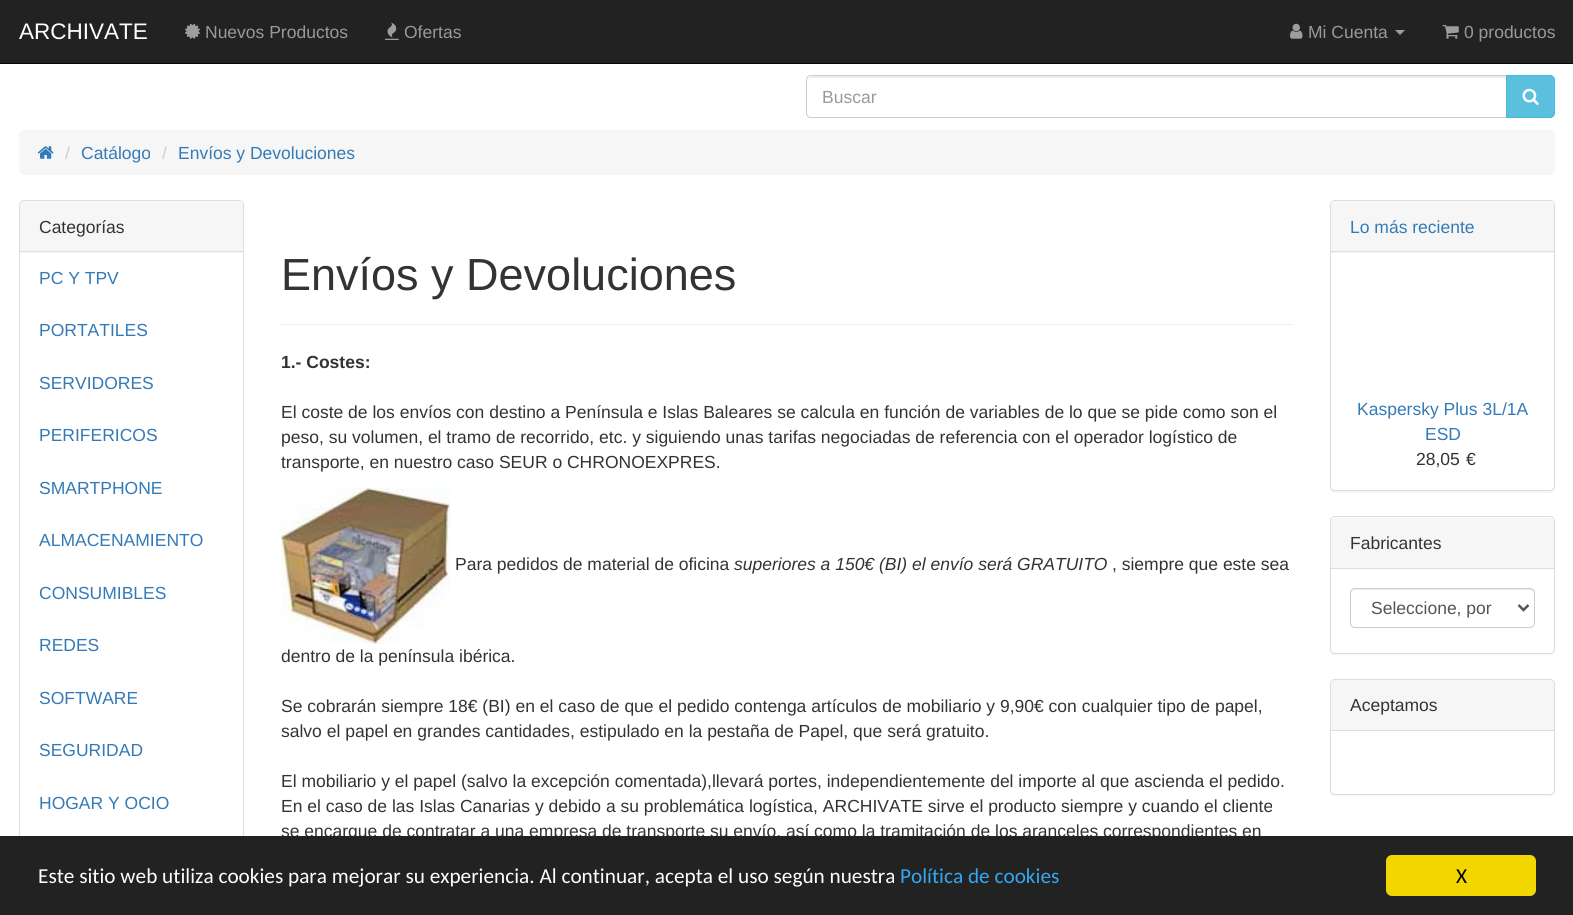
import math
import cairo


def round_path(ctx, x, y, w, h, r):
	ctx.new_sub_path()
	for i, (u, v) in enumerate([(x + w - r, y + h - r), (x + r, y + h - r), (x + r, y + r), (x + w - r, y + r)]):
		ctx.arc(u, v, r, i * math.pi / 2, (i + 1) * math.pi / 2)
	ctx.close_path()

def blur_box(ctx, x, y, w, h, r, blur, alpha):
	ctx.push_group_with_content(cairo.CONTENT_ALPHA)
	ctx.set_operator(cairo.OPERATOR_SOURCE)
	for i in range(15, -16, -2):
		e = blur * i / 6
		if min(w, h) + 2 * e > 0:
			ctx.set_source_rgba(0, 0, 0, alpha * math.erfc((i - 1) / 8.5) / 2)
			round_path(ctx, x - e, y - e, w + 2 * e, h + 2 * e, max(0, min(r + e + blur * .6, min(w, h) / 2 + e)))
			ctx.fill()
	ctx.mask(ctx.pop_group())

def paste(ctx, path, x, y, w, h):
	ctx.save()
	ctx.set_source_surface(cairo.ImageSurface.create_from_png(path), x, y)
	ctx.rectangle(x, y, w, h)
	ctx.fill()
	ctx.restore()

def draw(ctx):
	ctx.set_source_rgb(1, 1, 1)
	ctx.paint()
	ctx.set_source_rgb(0.133, 0.133, 0.133)
	ctx.rectangle(0, 0, 1573, 63)
	ctx.fill()
	ctx.set_source_rgb(0.031, 0.031, 0.031)
	ctx.rectangle(0, 63, 1573, 1)
	ctx.fill()
	ctx.select_font_face('Liberation Sans')
	ctx.set_font_size(22.5)
	ctx.set_source_rgb(1, 1, 1)
	ctx.move_to(19, 39)
	ctx.show_text('ARCHIVATE')
	paste(ctx, 'media/1.png', 185, 23, 15, 16)
	ctx.set_font_size(17.5)
	ctx.set_source_rgb(0.6, 0.6, 0.6)
	ctx.move_to(205, 38)
	ctx.show_text('Nuevos Productos')
	paste(ctx, 'media/2.png', 385, 22, 14, 18)
	ctx.move_to(404, 38)
	ctx.show_text('Ofertas')
	paste(ctx, 'media/3.png', 1290, 23, 13, 16)
	ctx.move_to(1308, 38)
	ctx.show_text('Mi Cuenta')
	ctx.set_source_rgb(0.616, 0.616, 0.616)
	ctx.new_path()
	ctx.move_to(1395, 30)
	ctx.line_to(1405, 30)
	ctx.line_to(1400, 35)
	ctx.close_path()
	ctx.fill()
	paste(ctx, 'media/4.png', 1442, 25, 17, 14)
	ctx.set_source_rgb(0.6, 0.6, 0.6)
	ctx.move_to(1464, 38)
	ctx.show_text('0 productos')
	ctx.set_source_rgb(0.925, 0.925, 0.925)
	ctx.new_path()
	ctx.move_to(811, 78)
	ctx.line_to(1506, 78)
	ctx.line_to(1506, 76)
	ctx.line_to(812, 76)
	ctx.curve_to(810, 76, 808, 78, 808, 80)
	ctx.line_to(808, 81)
	ctx.curve_to(808, 79, 809, 78, 811, 78)
	ctx.close_path()
	ctx.fill()
	ctx.new_path()
	ctx.move_to(811, 75.5)
	ctx.line_to(1507.5, 75.5)
	ctx.line_to(1507.5, 117.5)
	ctx.line_to(811, 117.5)
	ctx.curve_to(808.5, 117.5, 806.5, 115.5, 806.5, 113)
	ctx.line_to(806.5, 80)
	ctx.curve_to(806.5, 77.5, 808.5, 75.5, 811, 75.5)
	ctx.close_path()
	ctx.set_source_rgb(0.8, 0.8, 0.8)
	ctx.set_line_width(1)
	ctx.stroke()
	ctx.set_source_rgb(0.6, 0.6, 0.6)
	ctx.move_to(822, 103)
	ctx.show_text('Buscar')
	ctx.set_source_rgb(0.357, 0.753, 0.871)
	ctx.new_path()
	ctx.move_to(1506.5, 75.5)
	ctx.line_to(1550, 75.5)
	ctx.curve_to(1552.5, 75.5, 1554.5, 77.5, 1554.5, 80)
	ctx.line_to(1554.5, 113)
	ctx.curve_to(1554.5, 115.5, 1552.5, 117.5, 1550, 117.5)
	ctx.line_to(1506.5, 117.5)
	ctx.close_path()
	ctx.fill_preserve()
	ctx.set_source_rgb(0.275, 0.722, 0.855)
	ctx.stroke()
	paste(ctx, 'media/5.png', 1522, 88, 17, 17)
	ctx.set_source_rgb(0.961, 0.961, 0.961)
	round_path(ctx, 19, 130, 1536, 45, 5)
	ctx.fill()
	paste(ctx, 'media/6.png', 37, 146, 17, 13)
	ctx.set_source_rgb(0.8, 0.8, 0.8)
	ctx.move_to(65, 159)
	ctx.show_text('/')
	ctx.set_source_rgb(0.2, 0.478, 0.718)
	ctx.move_to(81, 159)
	ctx.show_text('Catálogo')
	ctx.set_source_rgb(0.8, 0.8, 0.8)
	ctx.move_to(162, 159)
	ctx.show_text('/')
	ctx.set_source_rgb(0.2, 0.478, 0.718)
	ctx.move_to(178, 159)
	ctx.show_text('Envíos y Devoluciones')
	round_path(ctx, 19.5, 200.5, 224, 680, 4.5)
	ctx.set_source_rgb(0.867, 0.867, 0.867)
	ctx.stroke()
	ctx.set_source_rgb(0.961, 0.961, 0.961)
	ctx.new_path()
	ctx.move_to(24, 201)
	ctx.line_to(239, 201)
	ctx.curve_to(241, 201, 243, 203, 243, 205)
	ctx.line_to(243, 253)
	ctx.line_to(20, 253)
	ctx.line_to(20, 205)
	ctx.curve_to(20, 203, 22, 201, 24, 201)
	ctx.close_path()
	ctx.fill()
	ctx.set_source_rgb(0.867, 0.867, 0.867)
	ctx.rectangle(20, 251, 223, 1)
	ctx.fill()
	ctx.set_source_rgb(0.2, 0.2, 0.2)
	ctx.move_to(39, 233)
	ctx.show_text('Categorías')
	ctx.set_source_rgb(0.2, 0.478, 0.718)
	for x, y, s in [
		(39, 284, 'PC Y TPV'),
		(39, 336, 'PORTATILES'),
		(39, 389, 'SERVIDORES'),
		(39, 441, 'PERIFERICOS'),
		(39, 494, 'SMARTPHONE'),
		(39, 546, 'ALMACENAMIENTO'),
		(39, 599, 'CONSUMIBLES'),
		(39, 651, 'REDES'),
		(39, 704, 'SOFTWARE'),
		(39, 756, 'SEGURIDAD'),
		(39, 809, 'HOGAR Y OCIO'),
	]:
		ctx.move_to(x, y)
		ctx.show_text(s)
	ctx.set_source_rgb(0.933, 0.933, 0.933)
	ctx.rectangle(281, 324, 1012, 1)
	ctx.fill()
	ctx.set_font_size(45)
	ctx.set_source_rgb(0.2, 0.2, 0.2)
	ctx.move_to(281, 290)
	ctx.show_text('Envíos y Devoluciones')
	ctx.select_font_face('Liberation Sans', cairo.FONT_SLANT_NORMAL, cairo.FONT_WEIGHT_BOLD)
	ctx.set_font_size(17.5)
	ctx.move_to(281, 368)
	ctx.show_text('1.- Costes:')
	ctx.select_font_face('Liberation Sans')
	for x, y, s in [
		(281, 418, 'El coste de los envíos con destino a Península e Islas Baleares se calcula en función de variables de lo que se pide como son el'),
		(281, 443, 'peso, su volumen, el tramo de recorrido, etc. y siguiendo unas tarifas negociadas de referencia con el operador logístico de'),
		(281, 468, 'transporte, en nuestro caso SEUR o CHRONOEXPRES.'),
	]:
		ctx.move_to(x, y)
		ctx.show_text(s)
	paste(ctx, 'media/7.png', 281, 487, 169, 157)
	ctx.move_to(455, 570)
	ctx.show_text('Para pedidos de material de oficina')
	ctx.select_font_face('Liberation Sans', cairo.FONT_SLANT_ITALIC)
	ctx.move_to(734, 570)
	ctx.show_text('superiores a 150€ (BI) el envío será GRATUITO')
	ctx.select_font_face('Liberation Sans')
	for x, y, s in [
		(1112, 570, ', siempre que este sea'),
		(281, 662, 'dentro de la península ibérica.'),
		(281, 712, 'Se cobrarán siempre 18€ (BI) en el caso de que el pedido contenga artículos de mobiliario y 9,90€ con cualquier tipo de papel,'),
		(281, 737, 'salvo el papel en grandes cantidades, estipulado en la pestaña de Papel, que será gratuito.'),
		(281, 787, 'El mobiliario y el papel (salvo la excepción comentada),llevará portes, independientemente del importe al que ascienda el pedido.'),
		(281, 812, 'En el caso de las Islas Canarias y debido a su problemática logística, ARCHIVATE sirve el producto siempre y cuando el cliente'),
		(281, 837, 'se encargue de contratar a una empresa de transporte su envío, así como la tramitación de los aranceles correspondientes en'),
	]:
		ctx.move_to(x, y)
		ctx.show_text(s)
	ctx.set_source_rgb(0, 0, 0)
	blur_box(ctx, 1330, 201, 225, 292, 5, 0.5, 0.05)
	ctx.set_source_rgb(1, 1, 1)
	round_path(ctx, 1330.5, 200.5, 224, 290, 4.5)
	ctx.fill_preserve()
	ctx.set_source_rgb(0.867, 0.867, 0.867)
	ctx.stroke()
	ctx.set_source_rgb(0.961, 0.961, 0.961)
	ctx.new_path()
	ctx.move_to(1335, 201)
	ctx.line_to(1550, 201)
	ctx.curve_to(1552, 201, 1554, 203, 1554, 205)
	ctx.line_to(1554, 253)
	ctx.line_to(1331, 253)
	ctx.line_to(1331, 205)
	ctx.curve_to(1331, 203, 1333, 201, 1335, 201)
	ctx.close_path()
	ctx.fill()
	ctx.set_source_rgb(0.867, 0.867, 0.867)
	ctx.rectangle(1331, 251, 223, 1)
	ctx.fill()
	ctx.set_source_rgb(0.2, 0.478, 0.718)
	for x, y, s in [
		(1350, 233, 'Lo más reciente'),
		(1357, 415, 'Kaspersky Plus 3L/1A'),
		(1425, 440, 'ESD'),
	]:
		ctx.move_to(x, y)
		ctx.show_text(s)
	ctx.set_source_rgb(0.2, 0.2, 0.2)
	ctx.move_to(1416, 465)
	ctx.show_text('28,05')
	ctx.move_to(1466, 465)
	ctx.show_text('€')
	ctx.set_source_rgb(0, 0, 0)
	blur_box(ctx, 1330, 518, 225, 137, 5, 0.5, 0.05)
	ctx.set_source_rgb(1, 1, 1)
	round_path(ctx, 1330.5, 516.5, 224, 137, 4.5)
	ctx.fill_preserve()
	ctx.set_source_rgb(0.867, 0.867, 0.867)
	ctx.stroke()
	ctx.set_source_rgb(0.961, 0.961, 0.961)
	ctx.new_path()
	ctx.move_to(1335, 518)
	ctx.line_to(1550, 518)
	ctx.curve_to(1552, 518, 1554, 520, 1554, 522)
	ctx.line_to(1554, 569)
	ctx.line_to(1331, 569)
	ctx.line_to(1331, 522)
	ctx.curve_to(1331, 520, 1333, 518, 1335, 518)
	ctx.close_path()
	ctx.fill()
	ctx.set_source_rgb(0.867, 0.867, 0.867)
	ctx.rectangle(1331, 568, 223, 1)
	ctx.fill()
	ctx.set_source_rgb(0.2, 0.2, 0.2)
	ctx.move_to(1350, 549)
	ctx.show_text('Fabricantes')
	ctx.set_source_rgb(0.925, 0.925, 0.925)
	ctx.new_path()
	ctx.move_to(1355, 590)
	ctx.line_to(1530, 590)
	ctx.curve_to(1532, 590, 1534, 592, 1534, 594)
	ctx.line_to(1534, 593)
	ctx.curve_to(1534, 591, 1532, 589, 1530, 589)
	ctx.line_to(1355, 589)
	ctx.curve_to(1353, 589, 1351, 591, 1351, 593)
	ctx.line_to(1351, 594)
	ctx.curve_to(1351, 592, 1353, 590, 1355, 590)
	ctx.close_path()
	ctx.fill()
	round_path(ctx, 1350.5, 588.5, 184, 39, 4.5)
	ctx.set_source_rgb(0.8, 0.8, 0.8)
	ctx.stroke()
	ctx.new_path()
	ctx.move_to(1518.5, 605)
	ctx.line_to(1523.5, 610)
	ctx.line_to(1528.5, 605)
	ctx.set_source_rgb(0.333, 0.333, 0.333)
	ctx.set_line_width(2.5)
	ctx.stroke()
	ctx.move_to(1371, 614)
	ctx.show_text('Seleccione, por')
	ctx.set_source_rgb(0, 0, 0)
	blur_box(ctx, 1330, 680, 225, 116, 5, 0.5, 0.05)
	ctx.set_source_rgb(1, 1, 1)
	round_path(ctx, 1330.5, 679.5, 224, 115, 4.5)
	ctx.fill_preserve()
	ctx.set_source_rgb(0.867, 0.867, 0.867)
	ctx.set_line_width(1)
	ctx.stroke()
	ctx.set_source_rgb(0.961, 0.961, 0.961)
	ctx.new_path()
	ctx.move_to(1335, 680)
	ctx.line_to(1550, 680)
	ctx.curve_to(1552, 680, 1554, 682, 1554, 684)
	ctx.line_to(1554, 731)
	ctx.line_to(1331, 731)
	ctx.line_to(1331, 684)
	ctx.curve_to(1331, 682, 1333, 680, 1335, 680)
	ctx.close_path()
	ctx.fill()
	ctx.set_source_rgb(0.867, 0.867, 0.867)
	ctx.rectangle(1331, 730, 223, 1)
	ctx.fill()
	ctx.set_source_rgb(0.2, 0.2, 0.2)
	ctx.move_to(1350, 711)
	ctx.show_text('Aceptamos')
	ctx.set_source_rgb(0.133, 0.133, 0.133)
	ctx.rectangle(0, 836, 1573, 79)
	ctx.fill()
	ctx.select_font_face('Carlito')
	ctx.set_font_size(21.25)
	ctx.set_source_rgb(1, 1, 1)
	ctx.move_to(38, 883)
	ctx.show_text('Este sitio web utiliza cookies para mejorar su experiencia. Al continuar, acepta el uso según nuestra')
	ctx.set_source_rgb(0.192, 0.659, 0.941)
	ctx.move_to(900, 883)
	ctx.show_text('Política de cookies')
	ctx.set_source_rgb(0.945, 0.839, 0)
	round_path(ctx, 1386, 855, 150, 41, 6)
	ctx.fill()
	ctx.set_source_rgb(0, 0, 0)
	ctx.move_to(1456, 883)
	ctx.show_text('X')


surface = cairo.ImageSurface(cairo.FORMAT_RGB24, 1573, 915)
ctx = cairo.Context(surface)
options = cairo.FontOptions()
options.set_hint_metrics(cairo.HINT_METRICS_OFF)
options.set_hint_style(cairo.HINT_STYLE_NONE)
ctx.set_font_options(options)
ctx.set_miter_limit(4)
draw(ctx)
surface.write_to_png('image.png')
